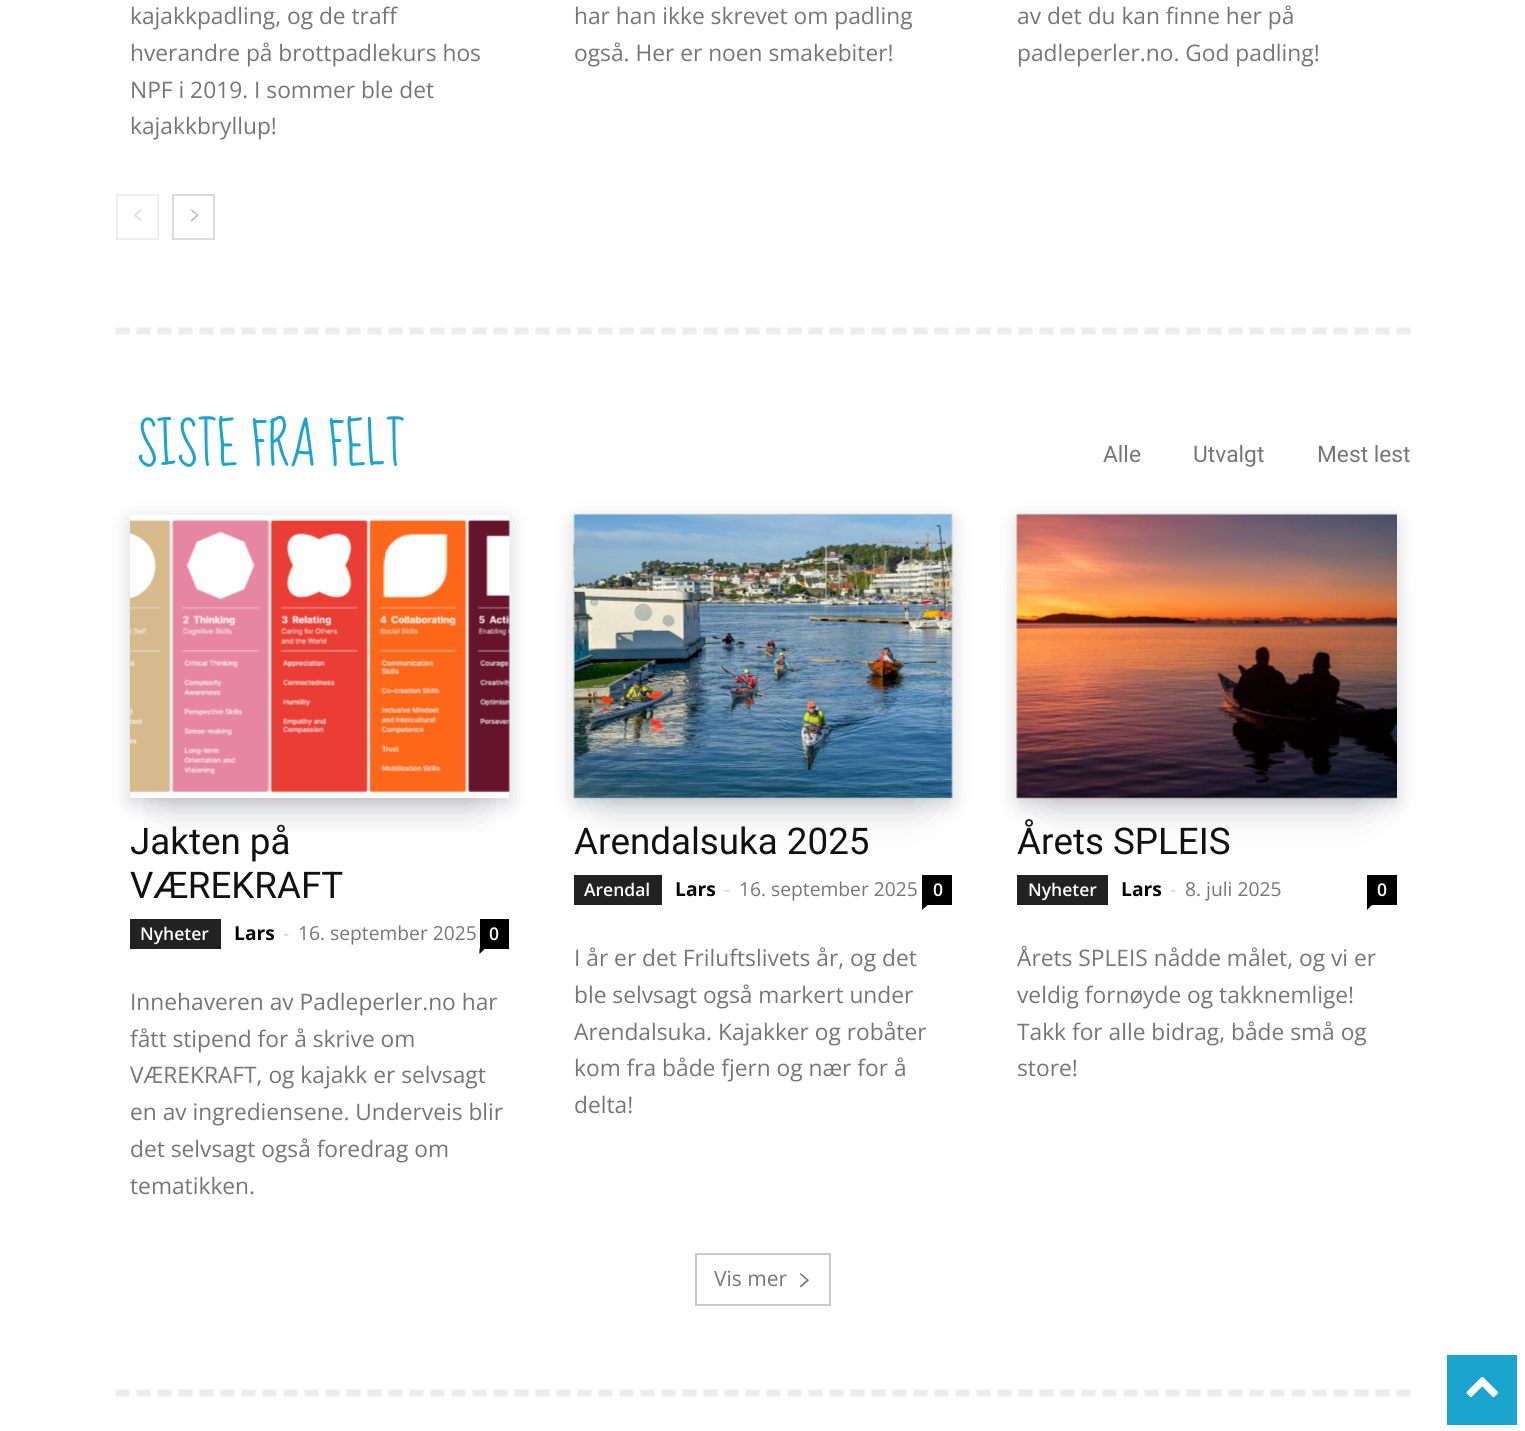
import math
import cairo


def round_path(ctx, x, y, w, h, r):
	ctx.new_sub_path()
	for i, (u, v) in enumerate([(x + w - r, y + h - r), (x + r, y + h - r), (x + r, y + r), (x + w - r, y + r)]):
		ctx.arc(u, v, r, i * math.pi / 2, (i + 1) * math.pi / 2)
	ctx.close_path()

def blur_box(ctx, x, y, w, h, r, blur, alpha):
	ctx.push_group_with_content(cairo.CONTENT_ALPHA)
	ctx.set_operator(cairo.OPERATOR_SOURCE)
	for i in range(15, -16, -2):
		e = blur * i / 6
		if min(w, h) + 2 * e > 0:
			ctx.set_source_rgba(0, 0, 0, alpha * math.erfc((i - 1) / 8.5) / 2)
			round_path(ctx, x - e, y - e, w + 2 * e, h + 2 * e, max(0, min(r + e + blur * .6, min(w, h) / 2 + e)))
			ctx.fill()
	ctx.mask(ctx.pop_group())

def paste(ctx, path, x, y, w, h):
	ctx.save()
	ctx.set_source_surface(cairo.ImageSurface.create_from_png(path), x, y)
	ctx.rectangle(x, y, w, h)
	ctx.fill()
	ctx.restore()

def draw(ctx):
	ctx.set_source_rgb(1, 1, 1)
	ctx.paint()
	ctx.select_font_face('Open Sans')
	ctx.set_font_size(22.75)
	ctx.set_source_rgb(0.463, 0.463, 0.463)
	for x, y, s in [
		(130, 24, 'kajakkpadling, og de traff'),
		(130, 61, 'hverandre på brottpadlekurs hos'),
		(130, 98, 'NPF i 2019. I sommer ble det'),
		(130, 134, 'kajakkbryllup!'),
		(574, 24, 'har han ikke skrevet om padling'),
		(574, 61, 'også. Her er noen smakebiter!'),
		(1017, 24, 'av det du kan finne her på'),
		(1017, 61, 'padleperler.no. God padling!'),
	]:
		ctx.move_to(x, y)
		ctx.show_text(s)
	ctx.rectangle(117, 195, 41, 44)
	ctx.set_source_rgb(0.933, 0.933, 0.933)
	ctx.stroke()
	paste(ctx, 'media/1.png', 134, 209, 8, 13)
	ctx.rectangle(173, 195, 41, 44)
	ctx.set_source_rgb(0.863, 0.863, 0.863)
	ctx.stroke()
	paste(ctx, 'media/2.png', 190, 209, 9, 13)
	ctx.new_path()
	ctx.move_to(115.5, 331)
	ctx.line_to(1410.5, 331)
	ctx.set_source_rgb(0.922, 0.922, 0.922)
	ctx.set_line_width(7)
	ctx.set_dash([14, 7])
	ctx.stroke()
	ctx.select_font_face('Sue Ellen Francisco')
	ctx.set_font_size(52.5)
	ctx.set_source_rgb(0.102, 0.643, 0.808)
	ctx.move_to(137, 465)
	ctx.show_text('SISTE FRA FELT')
	ctx.select_font_face('Roboto')
	ctx.set_font_size(22.75)
	ctx.set_source_rgb(0.463, 0.463, 0.463)
	for x, y, s in [
		(1103, 462, 'Alle'),
		(1193, 462, 'Utvalgt'),
		(1317, 462, 'Mest lest'),
	]:
		ctx.move_to(x, y)
		ctx.show_text(s)
	ctx.save()
	ctx.rectangle(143, 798, 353, 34)
	ctx.clip()
	ctx.set_source_rgb(0.027, 0.039, 0.098)
	blur_box(ctx, 165, 588, 309, 214, 0, 23.5, 0.2)
	ctx.restore()
	ctx.save()
	ctx.set_fill_rule(cairo.FILL_RULE_EVEN_ODD)
	ctx.new_path()
	ctx.move_to(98, 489)
	ctx.line_to(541, 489)
	ctx.line_to(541, 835)
	ctx.line_to(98, 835)
	ctx.close_path()
	ctx.move_to(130, 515)
	ctx.line_to(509, 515)
	ctx.line_to(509, 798)
	ctx.line_to(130, 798)
	ctx.close_path()
	ctx.clip()
	ctx.set_source_rgb(0.027, 0.039, 0.098)
	blur_box(ctx, 131, 522, 377, 280, 0, 10.5, 0.2)
	ctx.restore()
	paste(ctx, 'media/3.png', 130, 519, 380, 274)
	ctx.set_font_size(36.75)
	ctx.set_source_rgb(0.067, 0.067, 0.067)
	ctx.move_to(130, 854)
	ctx.show_text('Jakten på')
	ctx.move_to(130, 898)
	ctx.show_text('VÆREKRAFT')
	ctx.set_source_rgb(0.133, 0.133, 0.133)
	ctx.rectangle(130, 919, 91, 30)
	ctx.fill()
	ctx.select_font_face('Open Sans SemiBold')
	ctx.set_font_size(17.5)
	ctx.set_source_rgb(1, 1, 1)
	ctx.move_to(140, 940)
	ctx.show_text('Nyheter')
	ctx.select_font_face('Open Sans', cairo.FONT_SLANT_NORMAL, cairo.FONT_WEIGHT_BOLD)
	ctx.set_font_size(19.25)
	ctx.set_source_rgb(0, 0, 0)
	ctx.move_to(234, 940)
	ctx.show_text('Lars')
	ctx.select_font_face('Open Sans')
	ctx.set_source_rgb(0.8, 0.8, 0.8)
	ctx.move_to(283, 940)
	ctx.show_text('-')
	ctx.set_source_rgb(0.463, 0.463, 0.463)
	ctx.move_to(298, 940)
	ctx.show_text('16. september 2025')
	ctx.set_source_rgb(0, 0, 0)
	ctx.rectangle(480, 919, 29, 30)
	ctx.fill()
	ctx.select_font_face('Open Sans SemiBold')
	ctx.set_font_size(17.5)
	ctx.set_source_rgb(1, 1, 1)
	ctx.move_to(489, 940)
	ctx.show_text('0')
	ctx.set_source_rgb(0, 0, 0)
	ctx.new_path()
	ctx.move_to(479.5, 948.5)
	ctx.line_to(485, 948.5)
	ctx.line_to(479.5, 954)
	ctx.close_path()
	ctx.fill()
	ctx.select_font_face('Open Sans')
	ctx.set_font_size(22.75)
	ctx.set_source_rgb(0.463, 0.463, 0.463)
	for x, y, s in [
		(130, 1010, 'Innehaveren av Padleperler.no har'),
		(130, 1047, 'fått stipend for å skrive om'),
		(130, 1083, 'VÆREKRAFT, og kajakk er selvsagt'),
		(130, 1120, 'en av ingrediensene. Underveis blir'),
		(130, 1157, 'det selvsagt også foredrag om'),
		(130, 1194, 'tematikken.'),
	]:
		ctx.move_to(x, y)
		ctx.show_text(s)
	ctx.set_source_rgb(0.027, 0.039, 0.098)
	blur_box(ctx, 609, 588, 308, 214, 0, 23.5, 0.2)
	blur_box(ctx, 576, 522, 374, 280, 0, 10.5, 0.2)
	paste(ctx, 'media/4.png', 573, 513, 380, 286)
	ctx.select_font_face('Roboto')
	ctx.set_font_size(36.75)
	ctx.set_source_rgb(0.067, 0.067, 0.067)
	ctx.move_to(574, 854)
	ctx.show_text('Arendalsuka 2025')
	ctx.set_source_rgb(0.133, 0.133, 0.133)
	ctx.rectangle(574, 875, 88, 30)
	ctx.fill()
	ctx.select_font_face('Open Sans SemiBold')
	ctx.set_font_size(17.5)
	ctx.set_source_rgb(1, 1, 1)
	ctx.move_to(584, 896)
	ctx.show_text('Arendal')
	ctx.select_font_face('Open Sans', cairo.FONT_SLANT_NORMAL, cairo.FONT_WEIGHT_BOLD)
	ctx.set_font_size(19.25)
	ctx.set_source_rgb(0, 0, 0)
	ctx.move_to(675, 896)
	ctx.show_text('Lars')
	ctx.select_font_face('Open Sans')
	ctx.set_source_rgb(0.8, 0.8, 0.8)
	ctx.move_to(724, 896)
	ctx.show_text('-')
	ctx.set_source_rgb(0.463, 0.463, 0.463)
	ctx.move_to(739, 896)
	ctx.show_text('16. september 2025')
	ctx.set_source_rgb(0, 0, 0)
	ctx.rectangle(922, 875, 30, 30)
	ctx.fill()
	ctx.select_font_face('Open Sans SemiBold')
	ctx.set_font_size(17.5)
	ctx.set_source_rgb(1, 1, 1)
	ctx.move_to(933, 896)
	ctx.show_text('0')
	ctx.set_source_rgb(0, 0, 0)
	ctx.new_path()
	ctx.move_to(922, 905)
	ctx.line_to(927.5, 905)
	ctx.line_to(922, 910)
	ctx.close_path()
	ctx.fill()
	ctx.select_font_face('Open Sans')
	ctx.set_font_size(22.75)
	ctx.set_source_rgb(0.463, 0.463, 0.463)
	for x, y, s in [
		(574, 966, 'I år er det Friluftslivets år, og det'),
		(574, 1003, 'ble selvsagt også markert under'),
		(574, 1040, 'Arendalsuka. Kajakker og robåter'),
		(574, 1076, 'kom fra både fjern og nær for å'),
		(574, 1113, 'delta!'),
	]:
		ctx.move_to(x, y)
		ctx.show_text(s)
	ctx.set_source_rgb(0.027, 0.039, 0.098)
	blur_box(ctx, 1052, 588, 310, 214, 0, 23.5, 0.2)
	blur_box(ctx, 1019, 522, 376, 280, 0, 10.5, 0.2)
	paste(ctx, 'media/5.png', 1016, 513, 381, 286)
	ctx.select_font_face('Roboto')
	ctx.set_font_size(36.75)
	ctx.set_source_rgb(0.067, 0.067, 0.067)
	ctx.move_to(1017, 854)
	ctx.show_text('Årets SPLEIS')
	ctx.set_source_rgb(0.133, 0.133, 0.133)
	ctx.rectangle(1017, 875, 91, 30)
	ctx.fill()
	ctx.select_font_face('Open Sans SemiBold')
	ctx.set_font_size(17.5)
	ctx.set_source_rgb(1, 1, 1)
	ctx.move_to(1028, 896)
	ctx.show_text('Nyheter')
	ctx.select_font_face('Open Sans', cairo.FONT_SLANT_NORMAL, cairo.FONT_WEIGHT_BOLD)
	ctx.set_font_size(19.25)
	ctx.set_source_rgb(0, 0, 0)
	ctx.move_to(1121, 896)
	ctx.show_text('Lars')
	ctx.select_font_face('Open Sans')
	ctx.set_source_rgb(0.8, 0.8, 0.8)
	ctx.move_to(1170, 896)
	ctx.show_text('-')
	ctx.set_source_rgb(0.463, 0.463, 0.463)
	ctx.move_to(1185, 896)
	ctx.show_text('8. juli 2025')
	ctx.set_source_rgb(0, 0, 0)
	ctx.rectangle(1367, 875, 30, 30)
	ctx.fill()
	ctx.select_font_face('Open Sans SemiBold')
	ctx.set_font_size(17.5)
	ctx.set_source_rgb(1, 1, 1)
	ctx.move_to(1377, 896)
	ctx.show_text('0')
	ctx.set_source_rgb(0, 0, 0)
	ctx.new_path()
	ctx.move_to(1367, 905)
	ctx.line_to(1372, 905)
	ctx.line_to(1367, 910)
	ctx.close_path()
	ctx.fill()
	ctx.select_font_face('Open Sans')
	ctx.set_font_size(22.75)
	ctx.set_source_rgb(0.463, 0.463, 0.463)
	for x, y, s in [
		(1017, 966, 'Årets SPLEIS nådde målet, og vi er'),
		(1017, 1003, 'veldig fornøyde og takknemlige!'),
		(1017, 1040, 'Takk for alle bidrag, både små og'),
		(1017, 1076, 'store!'),
	]:
		ctx.move_to(x, y)
		ctx.show_text(s)
	ctx.rectangle(696, 1254, 134, 51)
	ctx.set_source_rgb(0.788, 0.788, 0.788)
	ctx.set_line_width(2)
	ctx.set_dash([])
	ctx.stroke()
	ctx.set_font_size(21)
	ctx.set_source_rgb(0.463, 0.463, 0.463)
	ctx.move_to(714, 1286)
	ctx.show_text('Vis mer')
	paste(ctx, 'media/6.png', 800, 1273, 9, 15)
	ctx.new_path()
	ctx.move_to(115.5, 1393)
	ctx.line_to(1410.5, 1393)
	ctx.set_source_rgb(0.922, 0.922, 0.922)
	ctx.set_line_width(7)
	ctx.set_dash([14, 7])
	ctx.stroke()
	ctx.set_source_rgb(0.102, 0.643, 0.808)
	ctx.rectangle(1447, 1355, 70, 70)
	ctx.fill()
	paste(ctx, 'media/7.png', 1466, 1376, 32, 21)


surface = cairo.ImageSurface(cairo.FORMAT_RGB24, 1525, 1431)
ctx = cairo.Context(surface)
options = cairo.FontOptions()
options.set_hint_metrics(cairo.HINT_METRICS_OFF)
options.set_hint_style(cairo.HINT_STYLE_NONE)
ctx.set_font_options(options)
ctx.set_miter_limit(4)
draw(ctx)
surface.write_to_png('image.png')
